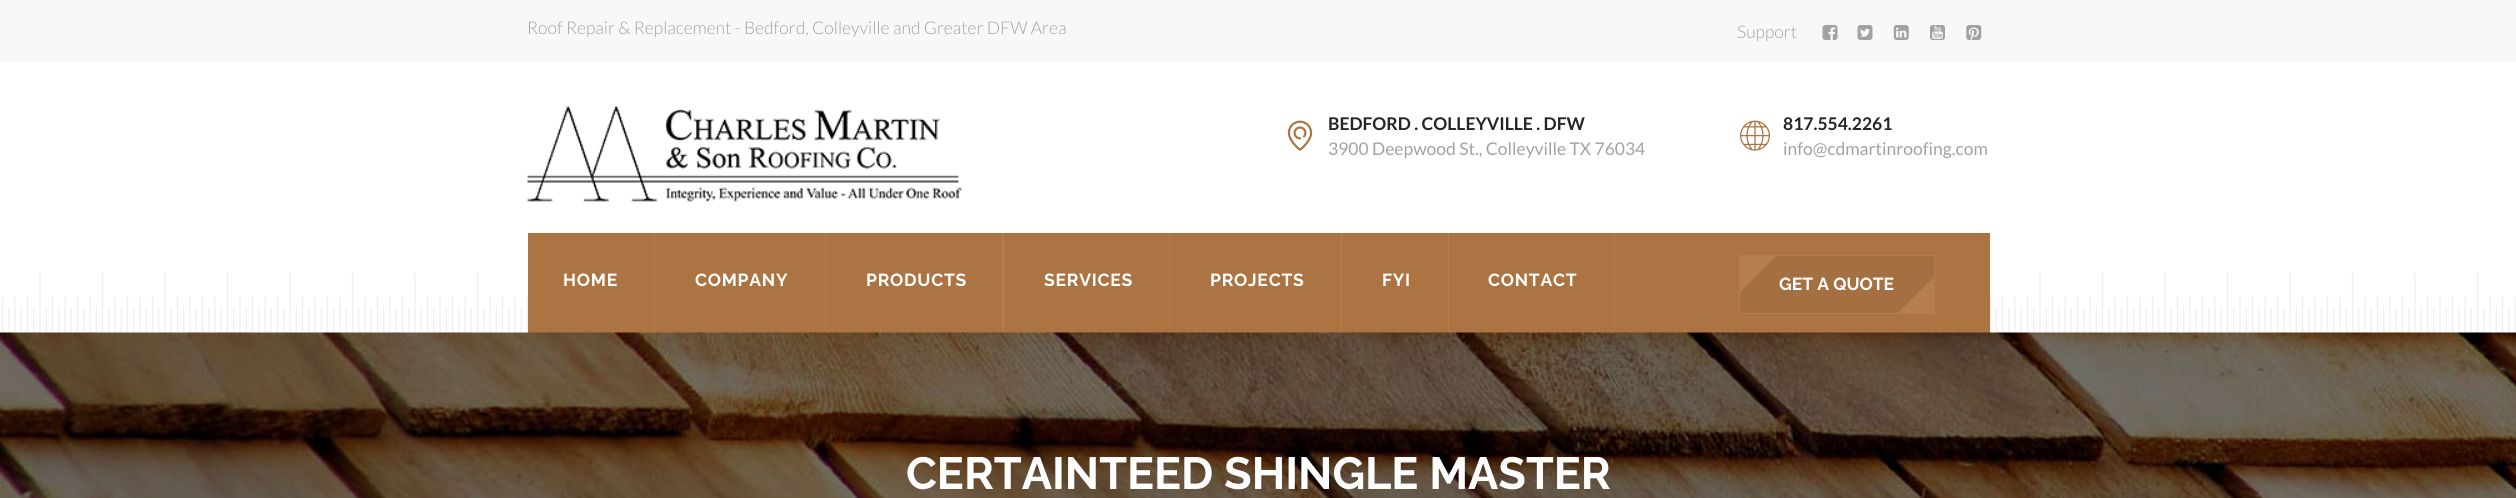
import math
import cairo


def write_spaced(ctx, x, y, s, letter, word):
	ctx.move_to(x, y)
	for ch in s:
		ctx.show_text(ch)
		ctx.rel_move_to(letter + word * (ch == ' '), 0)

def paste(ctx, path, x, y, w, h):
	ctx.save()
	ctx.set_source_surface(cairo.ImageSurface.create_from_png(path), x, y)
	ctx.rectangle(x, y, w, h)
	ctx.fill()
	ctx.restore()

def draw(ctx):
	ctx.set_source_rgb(1, 1, 1)
	ctx.paint()
	ctx.set_source_rgb(0.969, 0.969, 0.969)
	ctx.rectangle(0, 0, 2516, 63)
	ctx.fill()
	ctx.select_font_face('Lato Light')
	ctx.set_font_size(17.5)
	ctx.set_source_rgb(0.635, 0.635, 0.635)
	ctx.move_to(527, 34)
	ctx.show_text('Roof Repair & Replacement - Bedford, Colleyville and Greater DFW Area')
	ctx.move_to(1737, 38)
	ctx.show_text('Support')
	paste(ctx, 'media/1.png', 1822, 25, 16, 15)
	paste(ctx, 'media/2.png', 1857, 25, 16, 15)
	paste(ctx, 'media/3.png', 1893, 25, 16, 15)
	paste(ctx, 'media/4.png', 1930, 25, 15, 15)
	paste(ctx, 'media/5.png', 1966, 25, 16, 15)
	paste(ctx, 'media/9.png', 2, 272, 2514, 61)
	ctx.set_source_rgb(0.671, 0.455, 0.259)
	ctx.rectangle(528, 233, 1462, 100)
	ctx.fill()
	ctx.set_source_rgb(0.71, 0.494, 0.302)
	ctx.new_path()
	ctx.move_to(655, 232)
	ctx.line_to(655, 332)
	ctx.line_to(654, 326)
	ctx.line_to(654, 232)
	ctx.close_path()
	ctx.fill()
	ctx.new_path()
	ctx.move_to(826, 232)
	ctx.line_to(826, 332)
	ctx.line_to(825, 326)
	ctx.line_to(825, 232)
	ctx.close_path()
	ctx.fill()
	ctx.new_path()
	ctx.move_to(1004, 232)
	ctx.line_to(1004, 332)
	ctx.line_to(1002, 326)
	ctx.line_to(1002, 232)
	ctx.close_path()
	ctx.fill()
	ctx.new_path()
	ctx.move_to(1170, 232)
	ctx.line_to(1170, 332)
	ctx.line_to(1169, 326)
	ctx.line_to(1169, 232)
	ctx.close_path()
	ctx.fill()
	ctx.new_path()
	ctx.move_to(1342, 232)
	ctx.line_to(1342, 332)
	ctx.line_to(1341, 326)
	ctx.line_to(1341, 232)
	ctx.close_path()
	ctx.fill()
	ctx.new_path()
	ctx.move_to(1449, 232)
	ctx.line_to(1449, 332)
	ctx.line_to(1448, 326)
	ctx.line_to(1448, 232)
	ctx.close_path()
	ctx.fill()
	ctx.new_path()
	ctx.move_to(1615, 232)
	ctx.line_to(1615, 332)
	ctx.line_to(1614, 326)
	ctx.line_to(1614, 232)
	ctx.close_path()
	ctx.fill()
	ctx.set_source_rgb(1, 1, 1)
	ctx.rectangle(654, 232, 961, 1)
	ctx.fill()
	paste(ctx, 'media/6.png', 527, 106, 435, 96)
	paste(ctx, 'media/7.png', 1287, 120, 26, 31)
	ctx.select_font_face('Lato', cairo.FONT_SLANT_NORMAL, cairo.FONT_WEIGHT_BOLD)
	ctx.set_source_rgb(0.145, 0.145, 0.145)
	ctx.move_to(1328, 130)
	ctx.show_text('BEDFORD . COLLEYVILLE . DFW')
	ctx.select_font_face('Lato')
	ctx.set_source_rgb(0.635, 0.635, 0.635)
	ctx.move_to(1328, 155)
	ctx.show_text('3900 Deepwood St., Colleyville TX 76034')
	paste(ctx, 'media/8.png', 1740, 120, 30, 31)
	ctx.select_font_face('Lato', cairo.FONT_SLANT_NORMAL, cairo.FONT_WEIGHT_BOLD)
	ctx.set_source_rgb(0.145, 0.145, 0.145)
	ctx.move_to(1783, 130)
	ctx.show_text('817.554.2261')
	ctx.select_font_face('Lato')
	ctx.set_source_rgb(0.635, 0.635, 0.635)
	ctx.move_to(1783, 155)
	ctx.show_text('info@cdmartinroofing.com')
	ctx.select_font_face('Raleway', cairo.FONT_SLANT_NORMAL, cairo.FONT_WEIGHT_BOLD)
	ctx.set_source_rgb(1, 1, 1)
	for x, y, s in [
		(563, 286, 'HOME'),
		(695, 286, 'COMPANY'),
		(866, 286, 'PRODUCTS'),
		(1044, 286, 'SERVICES'),
		(1210, 286, 'PROJECTS'),
		(1382, 286, 'FYI'),
		(1488, 286, 'CONTACT'),
	]:
		write_spaced(ctx, x, y, s, 0.75, 0)
	ctx.rectangle(1739.5, 255.5, 195, 58)
	ctx.set_source_rgb(0.71, 0.494, 0.302)
	ctx.set_line_width(1)
	ctx.stroke()
	ctx.rectangle(1740, 256, 194, 57)
	ctx.fill()
	ctx.save()
	ctx.rectangle(1740, 256, 194, 57)
	ctx.clip()
	ctx.set_source_rgb(0.647, 0.439, 0.255)
	ctx.new_path()
	ctx.move_to(1724, 308)
	ctx.line_to(1860, 172)
	ctx.line_to(1950, 261)
	ctx.line_to(1813, 397)
	ctx.close_path()
	ctx.fill()
	ctx.restore()
	ctx.set_source_rgb(1, 1, 1)
	ctx.move_to(1779, 290)
	ctx.show_text('GET A QUOTE')
	paste(ctx, 'media/10.png', 0, 332, 2516, 166)
	ctx.set_font_size(45)
	ctx.move_to(906, 489)
	ctx.show_text('CERTAINTEED SHINGLE MASTER')


surface = cairo.ImageSurface(cairo.FORMAT_RGB24, 2516, 498)
ctx = cairo.Context(surface)
options = cairo.FontOptions()
options.set_hint_metrics(cairo.HINT_METRICS_OFF)
options.set_hint_style(cairo.HINT_STYLE_NONE)
ctx.set_font_options(options)
ctx.set_miter_limit(4)
draw(ctx)
surface.write_to_png('image.png')
